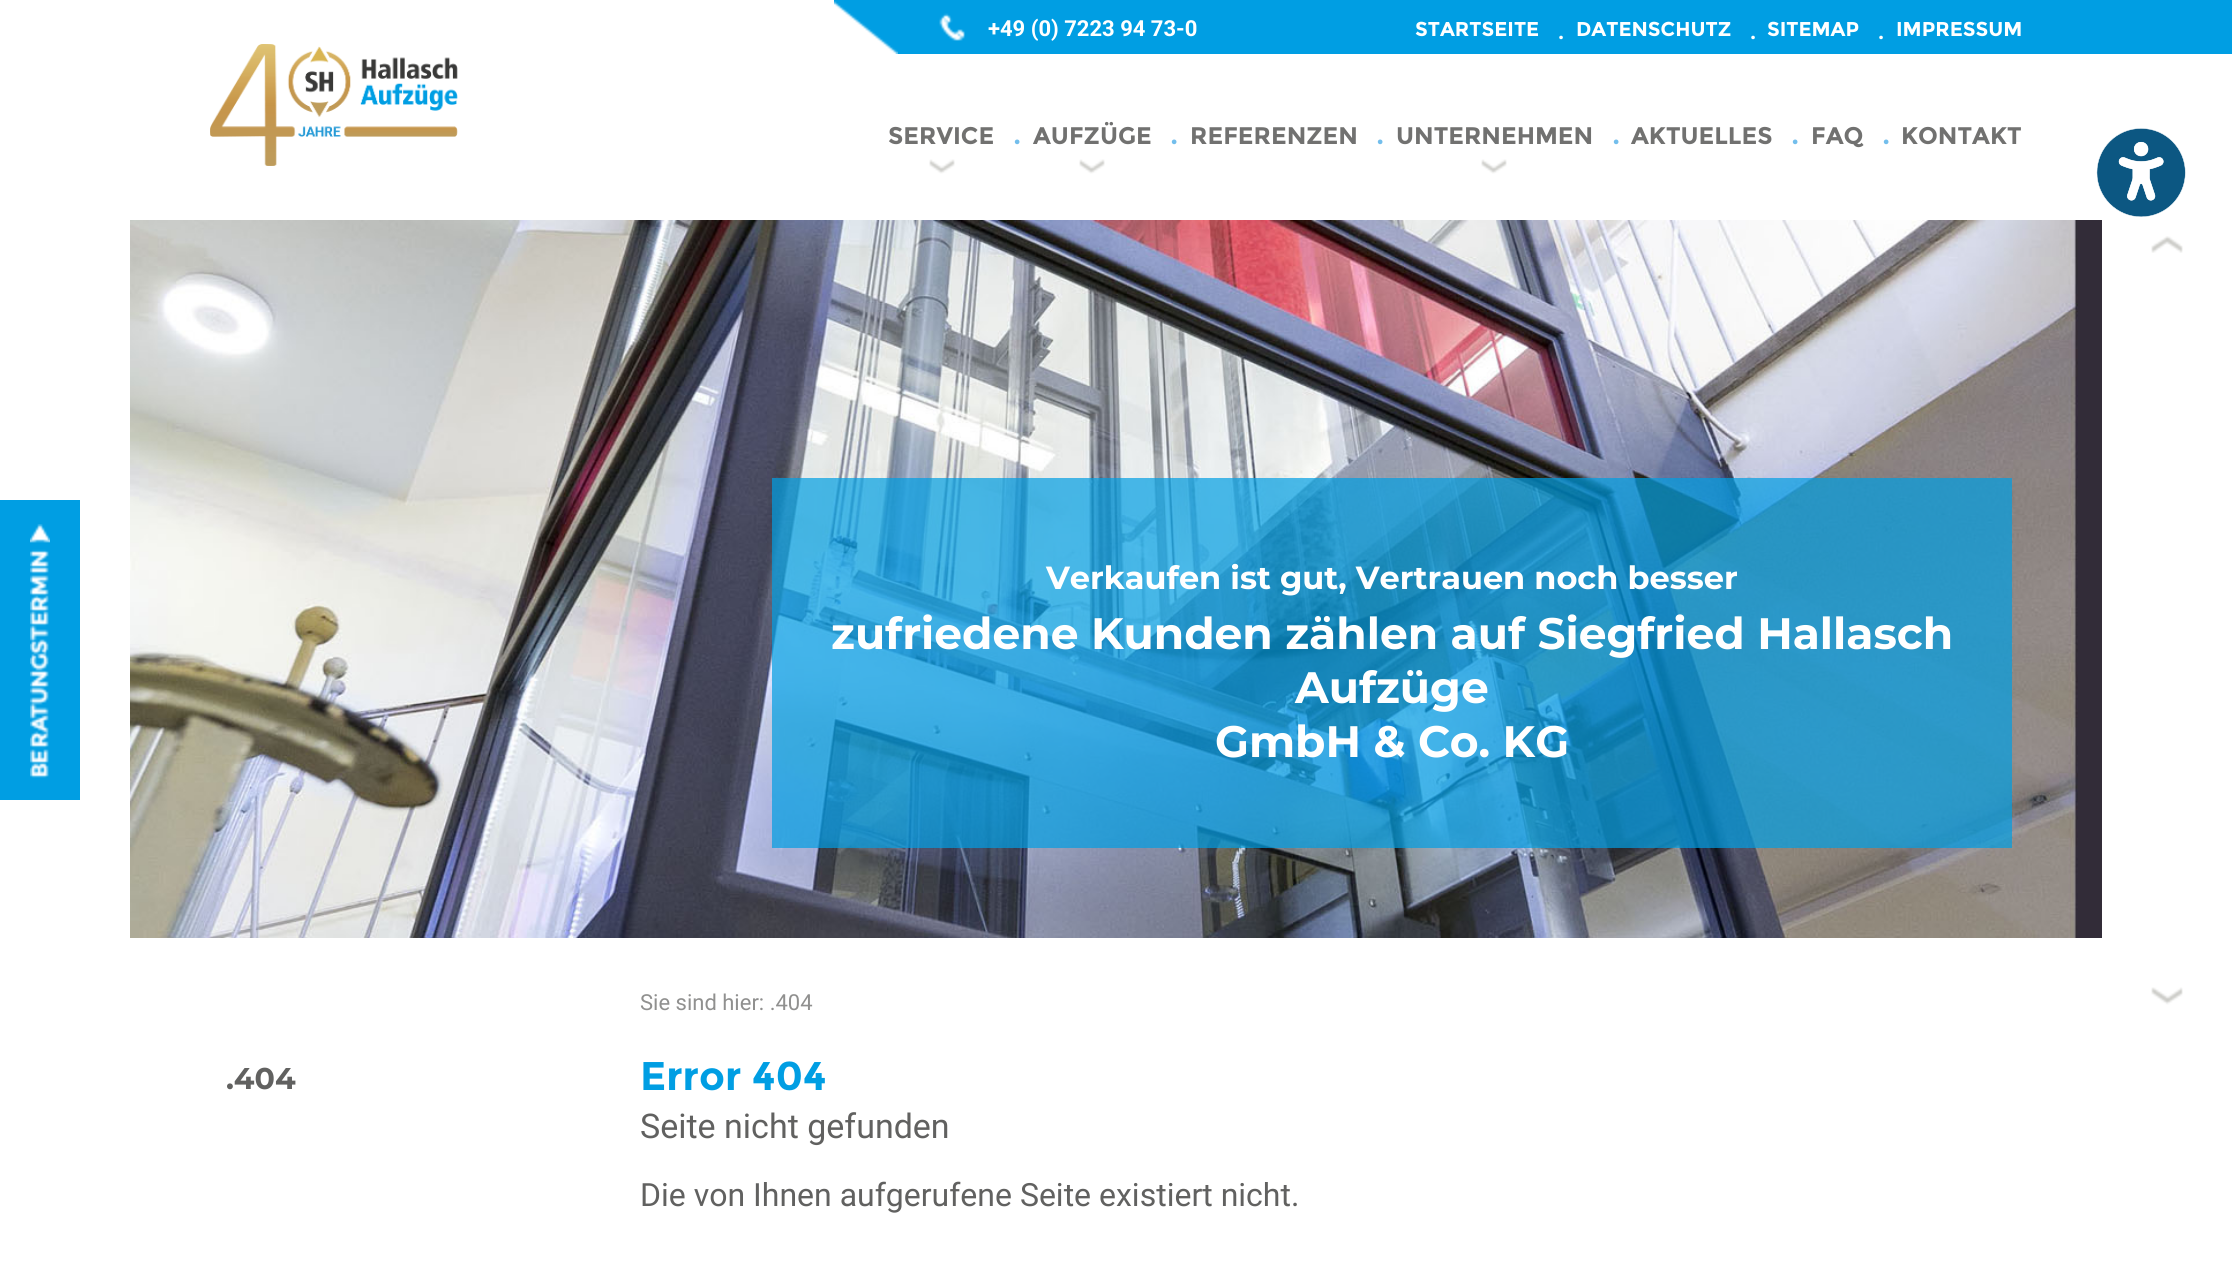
import math
import cairo


def paste(ctx, path, x, y, w, h):
	ctx.save()
	ctx.set_source_surface(cairo.ImageSurface.create_from_png(path), x, y)
	ctx.rectangle(x, y, w, h)
	ctx.fill()
	ctx.restore()

def draw(ctx):
	ctx.set_source_rgb(1, 1, 1)
	ctx.paint()
	ctx.set_source_rgb(0, 0.62, 0.89)
	ctx.rectangle(898, 0, 1334, 54)
	ctx.fill()
	paste(ctx, 'media/1.png', 834, 0, 64, 54)
	paste(ctx, 'media/2.png', 939, 13, 26, 28)
	ctx.select_font_face('Roboto', cairo.FONT_SLANT_NORMAL, cairo.FONT_WEIGHT_BOLD)
	ctx.set_font_size(22)
	ctx.set_source_rgb(1, 1, 1)
	ctx.move_to(988, 36)
	ctx.show_text('+49 (0) 7223 94 73-0')
	ctx.select_font_face('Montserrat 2', cairo.FONT_SLANT_NORMAL, cairo.FONT_WEIGHT_BOLD)
	ctx.set_font_size(20)
	ctx.move_to(1415, 36)
	ctx.show_text('STARTSEITE')
	ctx.move_to(1576, 36)
	ctx.show_text('DATENSCHUTZ')
	ctx.select_font_face('Roboto')
	ctx.set_font_size(32)
	ctx.move_to(1557, 39)
	ctx.show_text('.')
	ctx.select_font_face('Montserrat 2', cairo.FONT_SLANT_NORMAL, cairo.FONT_WEIGHT_BOLD)
	ctx.set_font_size(20)
	ctx.move_to(1767, 36)
	ctx.show_text('SITEMAP')
	ctx.select_font_face('Roboto')
	ctx.set_font_size(32)
	ctx.move_to(1749, 39)
	ctx.show_text('.')
	ctx.select_font_face('Montserrat 2', cairo.FONT_SLANT_NORMAL, cairo.FONT_WEIGHT_BOLD)
	ctx.set_font_size(20)
	ctx.move_to(1896, 36)
	ctx.show_text('IMPRESSUM')
	ctx.select_font_face('Roboto')
	ctx.set_font_size(32)
	ctx.move_to(1877, 39)
	ctx.show_text('.')
	paste(ctx, 'media/3.png', 210, 44, 248, 122)
	ctx.select_font_face('Montserrat 2', cairo.FONT_SLANT_NORMAL, cairo.FONT_WEIGHT_BOLD)
	ctx.set_font_size(24)
	ctx.set_source_rgb(0.443, 0.443, 0.439)
	ctx.move_to(888, 144)
	ctx.show_text('SERVICE')
	paste(ctx, 'media/4.png', 929, 159, 26, 15)
	ctx.select_font_face('Montserrat', cairo.FONT_SLANT_NORMAL, cairo.FONT_WEIGHT_BOLD)
	ctx.set_source_rgb(0.451, 0.745, 0.925)
	ctx.move_to(1014, 144)
	ctx.show_text('.')
	ctx.select_font_face('Montserrat 2', cairo.FONT_SLANT_NORMAL, cairo.FONT_WEIGHT_BOLD)
	ctx.set_source_rgb(0.443, 0.443, 0.439)
	ctx.move_to(1033, 144)
	ctx.show_text('AUFZÜGE')
	paste(ctx, 'media/4.png', 1079, 159, 26, 15)
	ctx.select_font_face('Montserrat', cairo.FONT_SLANT_NORMAL, cairo.FONT_WEIGHT_BOLD)
	ctx.set_source_rgb(0.451, 0.745, 0.925)
	ctx.move_to(1171, 144)
	ctx.show_text('.')
	ctx.select_font_face('Montserrat 2', cairo.FONT_SLANT_NORMAL, cairo.FONT_WEIGHT_BOLD)
	ctx.set_source_rgb(0.443, 0.443, 0.439)
	ctx.move_to(1190, 144)
	ctx.show_text('REFERENZEN')
	ctx.select_font_face('Montserrat', cairo.FONT_SLANT_NORMAL, cairo.FONT_WEIGHT_BOLD)
	ctx.set_source_rgb(0.451, 0.745, 0.925)
	ctx.move_to(1377, 144)
	ctx.show_text('.')
	ctx.select_font_face('Montserrat 2', cairo.FONT_SLANT_NORMAL, cairo.FONT_WEIGHT_BOLD)
	ctx.set_source_rgb(0.443, 0.443, 0.439)
	ctx.move_to(1396, 144)
	ctx.show_text('UNTERNEHMEN')
	paste(ctx, 'media/4.png', 1481, 159, 26, 15)
	ctx.select_font_face('Montserrat', cairo.FONT_SLANT_NORMAL, cairo.FONT_WEIGHT_BOLD)
	ctx.set_source_rgb(0.451, 0.745, 0.925)
	ctx.move_to(1613, 144)
	ctx.show_text('.')
	ctx.select_font_face('Montserrat 2', cairo.FONT_SLANT_NORMAL, cairo.FONT_WEIGHT_BOLD)
	ctx.set_source_rgb(0.443, 0.443, 0.439)
	ctx.move_to(1631, 144)
	ctx.show_text('AKTUELLES')
	ctx.select_font_face('Montserrat', cairo.FONT_SLANT_NORMAL, cairo.FONT_WEIGHT_BOLD)
	ctx.set_source_rgb(0.451, 0.745, 0.925)
	ctx.move_to(1792, 144)
	ctx.show_text('.')
	ctx.select_font_face('Montserrat 2', cairo.FONT_SLANT_NORMAL, cairo.FONT_WEIGHT_BOLD)
	ctx.set_source_rgb(0.443, 0.443, 0.439)
	ctx.move_to(1811, 144)
	ctx.show_text('FAQ')
	ctx.select_font_face('Montserrat', cairo.FONT_SLANT_NORMAL, cairo.FONT_WEIGHT_BOLD)
	ctx.set_source_rgb(0.451, 0.745, 0.925)
	ctx.move_to(1883, 144)
	ctx.show_text('.')
	ctx.select_font_face('Montserrat 2', cairo.FONT_SLANT_NORMAL, cairo.FONT_WEIGHT_BOLD)
	ctx.set_source_rgb(0.443, 0.443, 0.439)
	ctx.move_to(1901, 144)
	ctx.show_text('KONTAKT')
	paste(ctx, 'media/5.png', 2096, 128, 90, 89)
	ctx.set_source_rgb(0, 0.62, 0.89)
	ctx.rectangle(0, 500, 80, 300)
	ctx.fill()
	paste(ctx, 'media/6.png', 30, 524, 20, 254)
	paste(ctx, 'media/7.png', 2151, 236, 32, 17)
	paste(ctx, 'media/8.png', 2151, 987, 32, 18)
	paste(ctx, 'media/9.png', 130, 220, 1972, 718)
	ctx.set_source_rgba(0, 0.62, 0.89, 0.7)
	ctx.rectangle(772, 478, 1240, 370)
	ctx.fill()
	ctx.select_font_face('Montserrat', cairo.FONT_SLANT_NORMAL, cairo.FONT_WEIGHT_BOLD)
	ctx.set_font_size(32)
	ctx.set_source_rgb(1, 1, 1)
	ctx.move_to(1046, 589)
	ctx.show_text('Verkaufen ist gut, Vertrauen noch besser')
	ctx.set_font_size(44)
	for x, y, s in [
		(831, 649, 'zufriedene Kunden zählen auf Siegfried Hallasch'),
		(1295, 703, 'Aufzüge'),
		(1215, 757, 'GmbH & Co. KG'),
	]:
		ctx.move_to(x, y)
		ctx.show_text(s)
	ctx.set_font_size(30)
	ctx.set_source_rgb(0.38, 0.38, 0.376)
	ctx.move_to(226, 1089)
	ctx.show_text('.404')
	ctx.select_font_face('Roboto')
	ctx.set_font_size(22)
	ctx.set_source_rgb(0.565, 0.565, 0.561)
	ctx.move_to(640, 1010)
	ctx.show_text('Sie sind hier: .404')
	ctx.select_font_face('Montserrat 2', cairo.FONT_SLANT_NORMAL, cairo.FONT_WEIGHT_BOLD)
	ctx.set_font_size(40)
	ctx.set_source_rgb(0, 0.62, 0.89)
	ctx.move_to(640, 1090)
	ctx.show_text('Error 404')
	ctx.select_font_face('Roboto')
	ctx.set_font_size(34)
	ctx.set_source_rgb(0.38, 0.38, 0.376)
	ctx.move_to(640, 1138)
	ctx.show_text('Seite nicht gefunden')
	ctx.set_font_size(32)
	ctx.move_to(640, 1206)
	ctx.show_text('Die von Ihnen aufgerufene Seite existiert nicht.')


surface = cairo.ImageSurface(cairo.FORMAT_RGB24, 2232, 1267)
ctx = cairo.Context(surface)
options = cairo.FontOptions()
options.set_hint_metrics(cairo.HINT_METRICS_OFF)
options.set_hint_style(cairo.HINT_STYLE_NONE)
ctx.set_font_options(options)
ctx.set_miter_limit(4)
draw(ctx)
surface.write_to_png('image.png')
